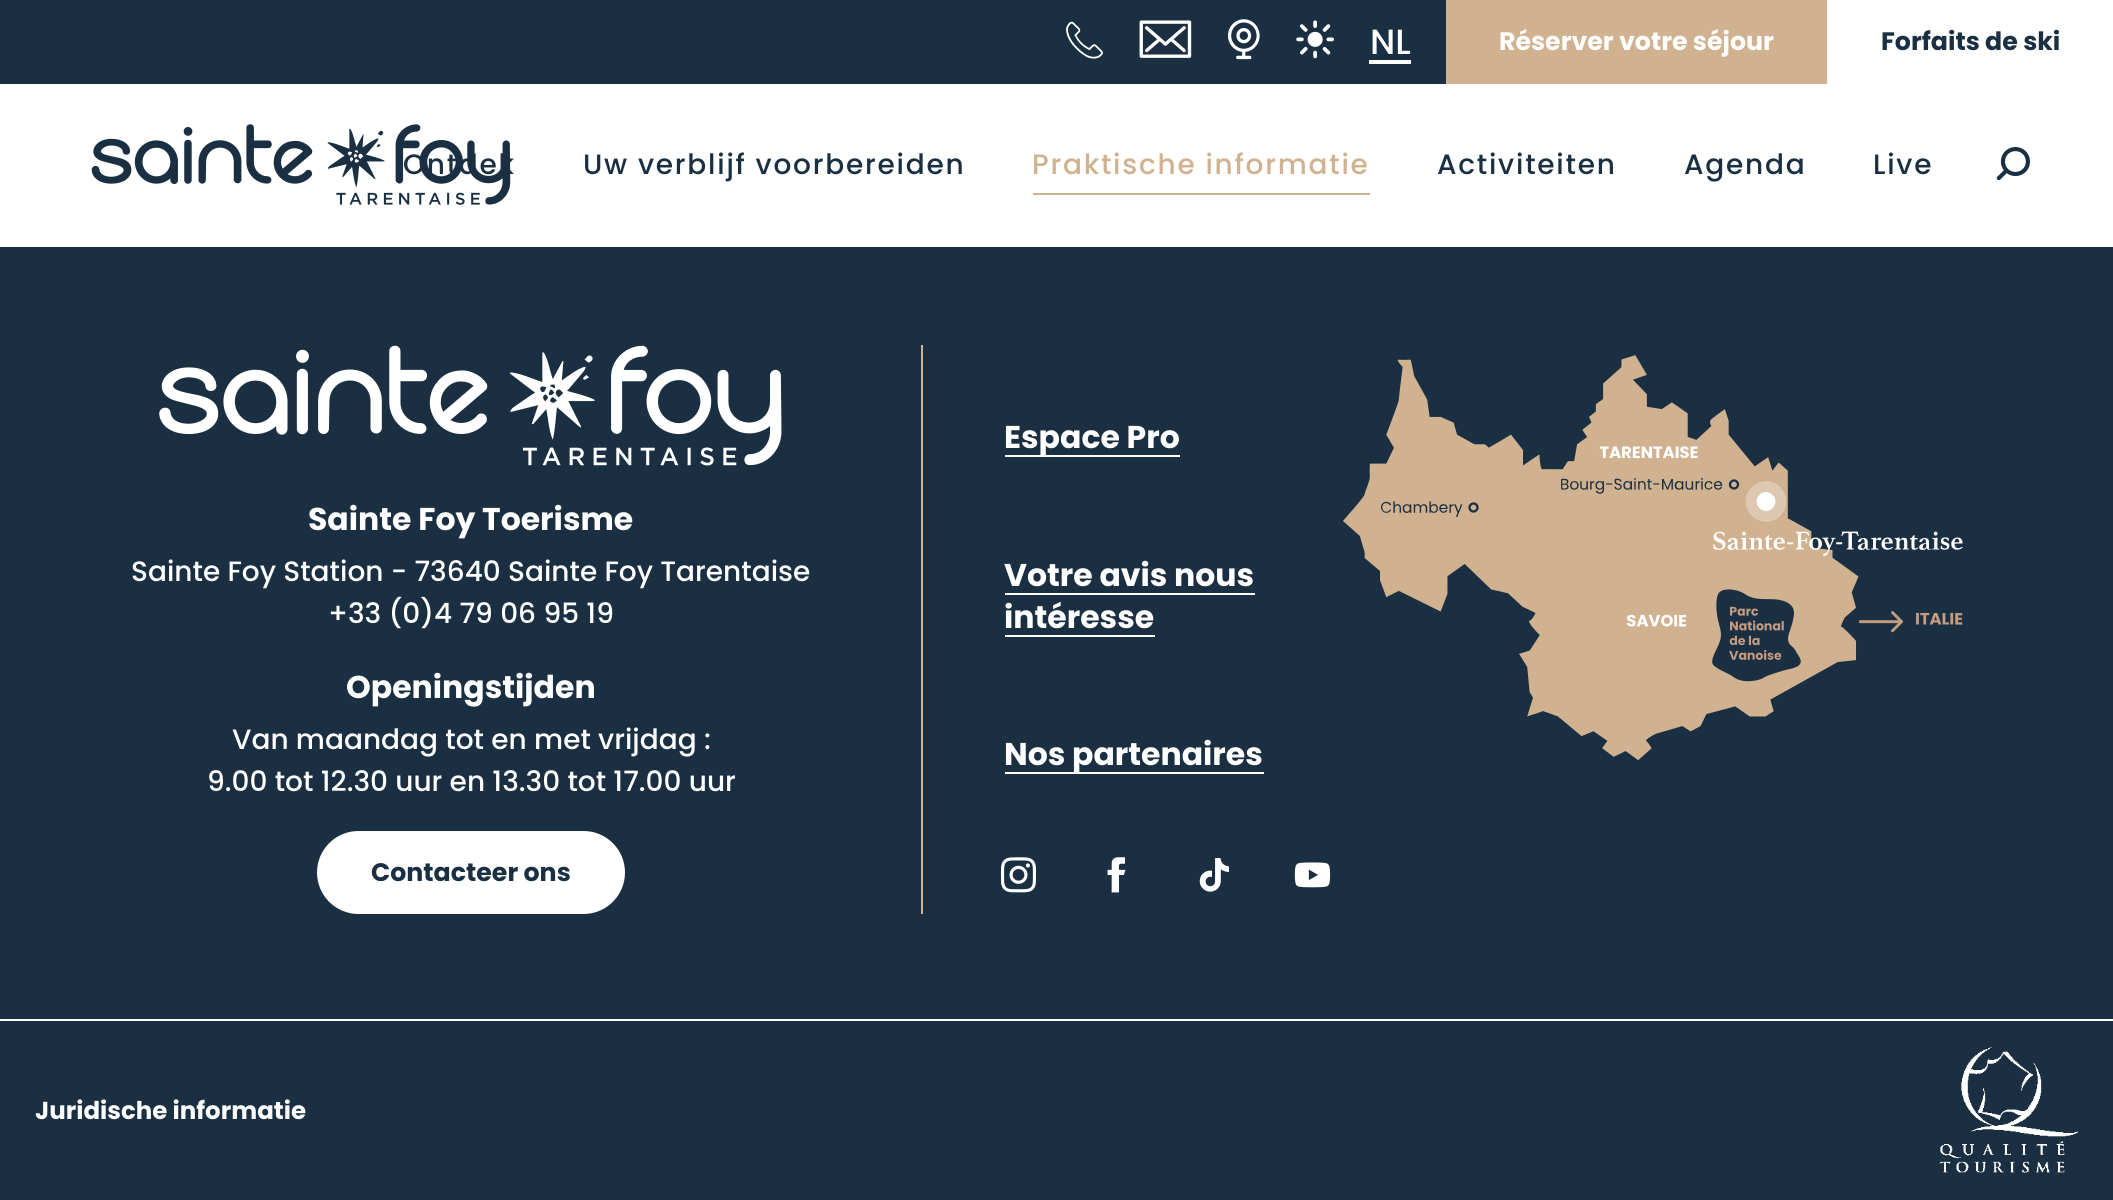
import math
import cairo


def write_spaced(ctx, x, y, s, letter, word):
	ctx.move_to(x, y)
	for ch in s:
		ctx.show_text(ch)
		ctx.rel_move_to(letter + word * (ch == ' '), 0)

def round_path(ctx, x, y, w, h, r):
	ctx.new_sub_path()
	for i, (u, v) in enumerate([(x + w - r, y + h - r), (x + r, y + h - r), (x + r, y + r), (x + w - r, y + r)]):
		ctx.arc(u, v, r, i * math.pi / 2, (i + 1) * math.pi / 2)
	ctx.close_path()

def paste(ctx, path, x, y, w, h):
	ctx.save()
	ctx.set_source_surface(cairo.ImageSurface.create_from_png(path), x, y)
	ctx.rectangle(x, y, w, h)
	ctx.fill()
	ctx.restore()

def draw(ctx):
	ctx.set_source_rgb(0.102, 0.184, 0.255)
	ctx.paint()
	paste(ctx, 'media/1.png', 1066, 21, 37, 38)
	paste(ctx, 'media/2.png', 1139, 20, 53, 38)
	paste(ctx, 'media/3.png', 1227, 19, 33, 41)
	paste(ctx, 'media/4.png', 1296, 20, 38, 39)
	ctx.select_font_face('Poppins Medium')
	ctx.set_font_size(35)
	ctx.set_source_rgb(1, 1, 1)
	ctx.move_to(1370, 54)
	ctx.show_text('NL')
	ctx.rectangle(1369, 60, 42, 4)
	ctx.fill()
	ctx.set_source_rgb(0.816, 0.694, 0.565)
	ctx.rectangle(1446, 0, 381, 84)
	ctx.fill()
	ctx.select_font_face('Poppins', cairo.FONT_SLANT_NORMAL, cairo.FONT_WEIGHT_BOLD)
	ctx.set_font_size(25.25)
	ctx.set_source_rgb(1, 1, 1)
	ctx.move_to(1499, 50)
	ctx.show_text('Réserver votre séjour')
	ctx.rectangle(1827, 0, 286, 84)
	ctx.fill()
	ctx.set_source_rgb(0.102, 0.184, 0.255)
	ctx.move_to(1881, 50)
	ctx.show_text('Forfaits de ski')
	ctx.set_source_rgb(1, 1, 1)
	ctx.rectangle(0, 84, 2113, 163)
	ctx.fill()
	ctx.select_font_face('Poppins Medium')
	ctx.set_font_size(28)
	ctx.set_source_rgb(0.102, 0.184, 0.255)
	write_spaced(ctx, 403, 174, 'Ontdek', 1.75, 0)
	paste(ctx, 'media/5.png', 91, 124, 420, 81)
	write_spaced(ctx, 583, 174, 'Uw verblijf voorbereiden', 1.75, 0)
	ctx.set_source_rgb(0.816, 0.694, 0.565)
	write_spaced(ctx, 1032, 174, 'Praktische informatie', 1.75, 0)
	ctx.rectangle(1033, 193, 337, 2)
	ctx.fill()
	ctx.set_source_rgb(0.102, 0.184, 0.255)
	for x, y, s in [
		(1437, 174, 'Activiteiten'),
		(1873, 174, 'Live'),
		(1684, 174, 'Agenda'),
	]:
		write_spaced(ctx, x, y, s, 1.75, 0)
	paste(ctx, 'media/6.png', 1996, 147, 34, 34)
	paste(ctx, 'media/7.png', 159, 345, 623, 121)
	ctx.select_font_face('Poppins', cairo.FONT_SLANT_NORMAL, cairo.FONT_WEIGHT_BOLD)
	ctx.set_font_size(31.5)
	ctx.set_source_rgb(1, 1, 1)
	ctx.move_to(308, 530)
	ctx.show_text('Sainte Foy Toerisme')
	ctx.select_font_face('Poppins Medium')
	ctx.set_font_size(28)
	ctx.move_to(131, 581)
	ctx.show_text('Sainte Foy Station - 73640 Sainte Foy Tarentaise')
	ctx.move_to(328, 623)
	ctx.show_text('+33 (0)4 79 06 95 19')
	ctx.select_font_face('Poppins', cairo.FONT_SLANT_NORMAL, cairo.FONT_WEIGHT_BOLD)
	ctx.set_font_size(31.5)
	ctx.move_to(346, 698)
	ctx.show_text('Openingstijden')
	ctx.select_font_face('Poppins Medium')
	ctx.set_font_size(28)
	ctx.move_to(232, 749)
	ctx.show_text('Van maandag tot en met vrijdag :')
	ctx.move_to(207, 791)
	ctx.show_text('9.00 tot 12.30 uur en 13.30 tot 17.00 uur')
	round_path(ctx, 319, 833, 304, 79, 39.5)
	ctx.fill_preserve()
	ctx.set_line_width(4)
	ctx.stroke()
	ctx.select_font_face('Poppins', cairo.FONT_SLANT_NORMAL, cairo.FONT_WEIGHT_BOLD)
	ctx.set_font_size(25.25)
	ctx.set_source_rgb(0.102, 0.184, 0.255)
	ctx.move_to(371, 881)
	ctx.show_text('Contacteer ons')
	ctx.set_source_rgb(0.816, 0.694, 0.565)
	ctx.rectangle(921, 345, 2, 569)
	ctx.fill()
	ctx.set_source_rgb(1, 1, 1)
	ctx.rectangle(1005, 455, 175, 2)
	ctx.fill()
	ctx.set_font_size(31.5)
	ctx.move_to(1004, 448)
	ctx.show_text('Espace Pro')
	ctx.move_to(1004, 586)
	ctx.show_text('Votre avis nous')
	ctx.rectangle(1005, 593, 250, 2)
	ctx.fill()
	ctx.move_to(1004, 628)
	ctx.show_text('intéresse')
	ctx.rectangle(1005, 635, 150, 2)
	ctx.fill()
	ctx.rectangle(1005, 772, 259, 2)
	ctx.fill()
	ctx.move_to(1004, 765)
	ctx.show_text('Nos partenaires')
	paste(ctx, 'media/8.png', 1000, 857, 36, 36)
	paste(ctx, 'media/9.png', 1107, 857, 19, 36)
	paste(ctx, 'media/10.png', 1199, 858, 30, 34)
	paste(ctx, 'media/11.png', 1294, 862, 37, 26)
	paste(ctx, 'media/12.png', 1343, 355, 620, 406)
	ctx.rectangle(0, 1019, 2113, 2)
	ctx.fill()
	ctx.set_font_size(24.5)
	ctx.move_to(35, 1119)
	ctx.show_text('Juridische informatie')
	paste(ctx, 'media/13.png', 1939, 1047, 140, 126)


surface = cairo.ImageSurface(cairo.FORMAT_RGB24, 2113, 1200)
ctx = cairo.Context(surface)
options = cairo.FontOptions()
options.set_hint_metrics(cairo.HINT_METRICS_OFF)
options.set_hint_style(cairo.HINT_STYLE_NONE)
ctx.set_font_options(options)
ctx.set_miter_limit(4)
draw(ctx)
surface.write_to_png('image.png')
